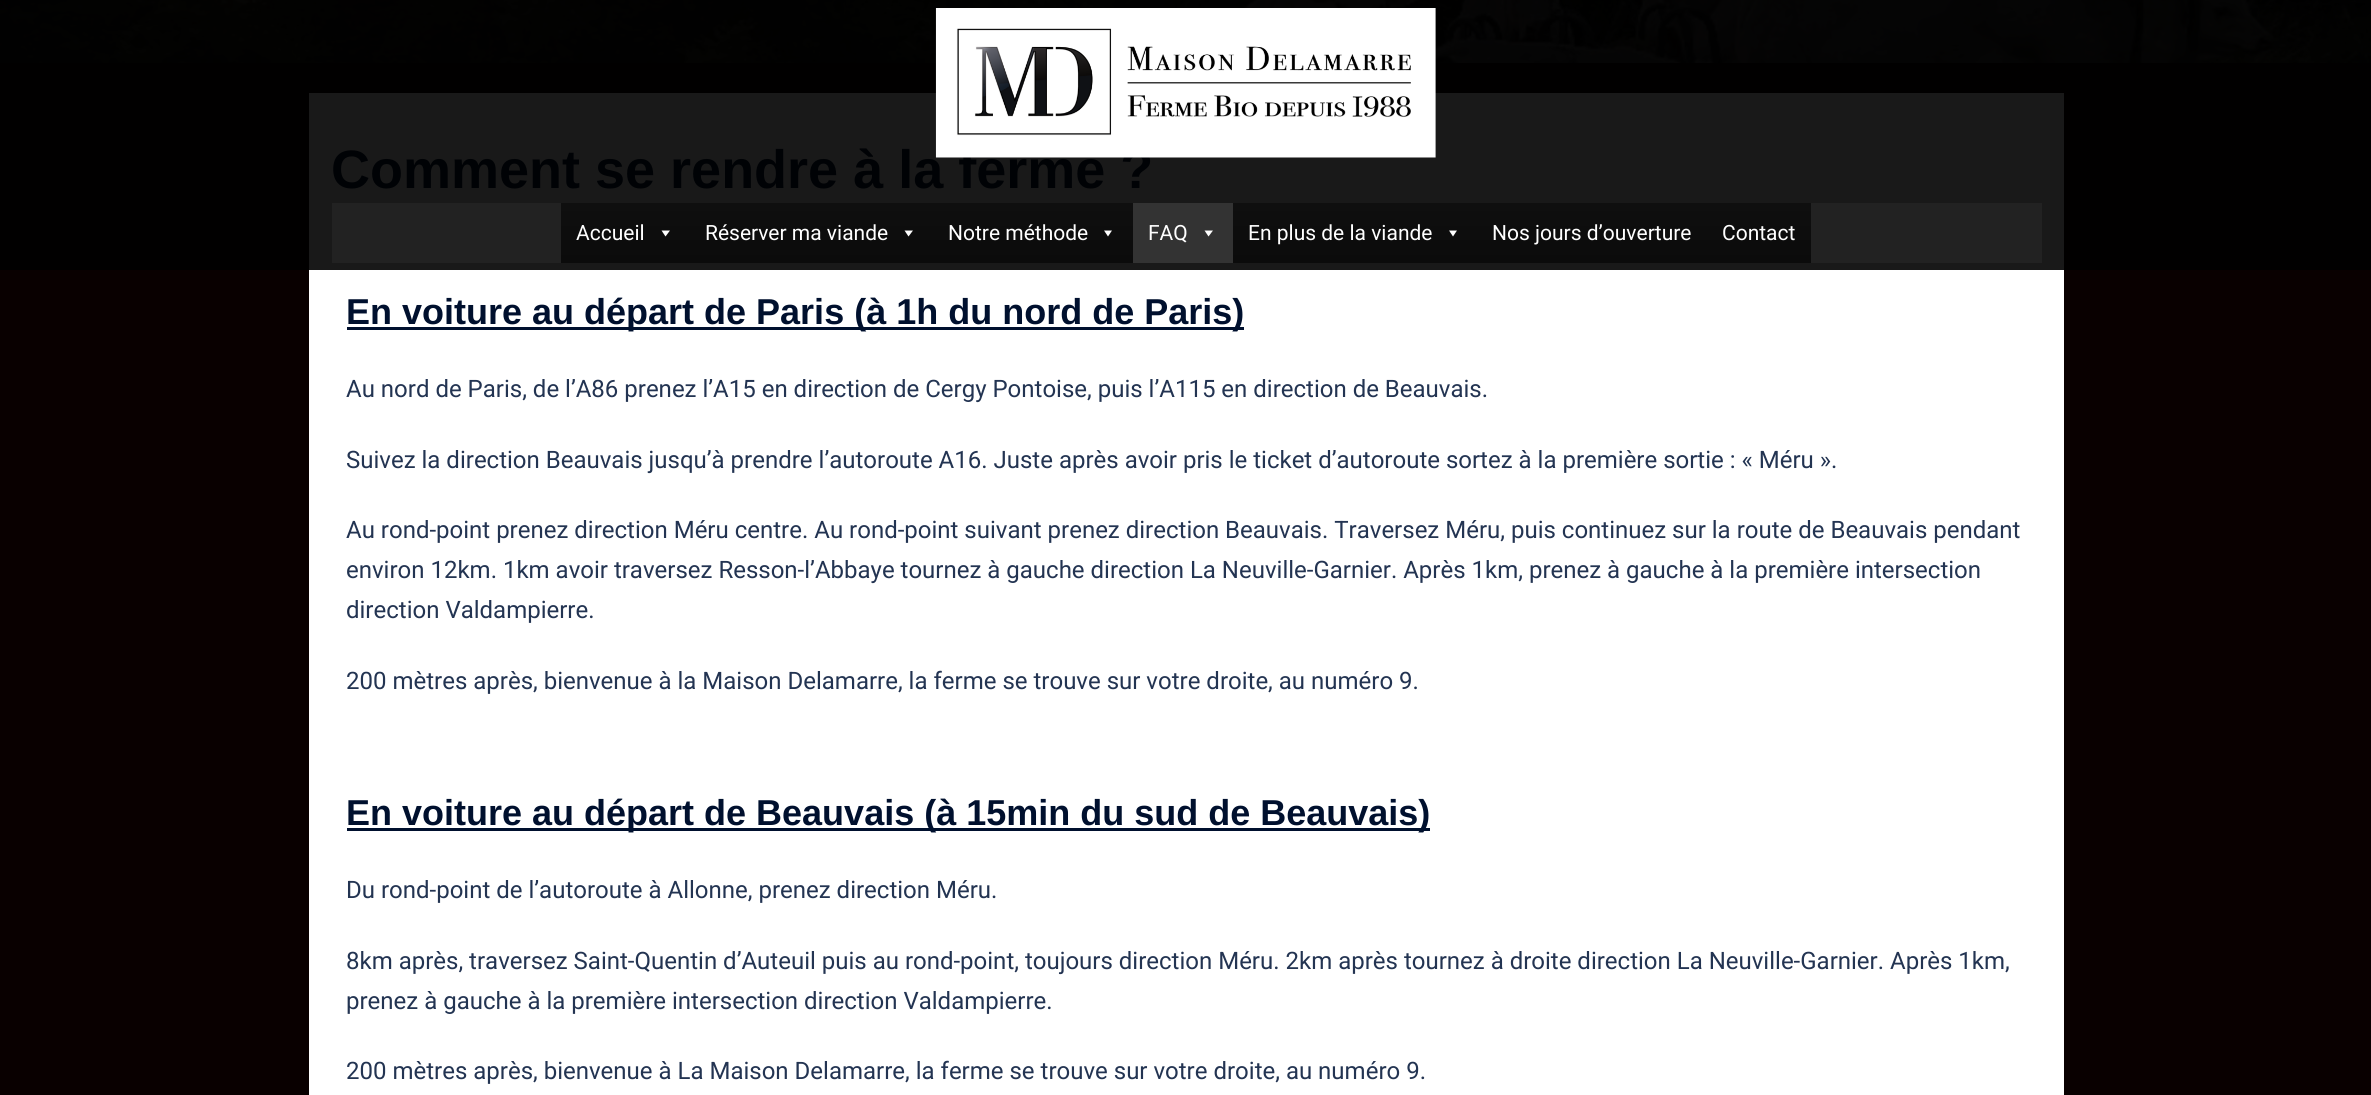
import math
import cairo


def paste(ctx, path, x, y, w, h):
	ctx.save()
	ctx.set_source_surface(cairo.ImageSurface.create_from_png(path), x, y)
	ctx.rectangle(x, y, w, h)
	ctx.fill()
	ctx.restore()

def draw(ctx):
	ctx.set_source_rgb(0.039, 0, 0)
	ctx.paint()
	ctx.set_source_rgb(0.004, 0, 0)
	ctx.rectangle(0, 63, 2371, 207)
	ctx.fill()
	paste(ctx, 'media/1.png', 0, 0, 2371, 63)
	ctx.set_source_rgb(1, 1, 1)
	ctx.rectangle(309, 270, 1755, 825)
	ctx.fill()
	ctx.set_source_rgb(0.098, 0.098, 0.098)
	ctx.rectangle(309, 93, 1755, 177)
	ctx.fill()
	ctx.select_font_face('Liberation Sans', cairo.FONT_SLANT_NORMAL, cairo.FONT_WEIGHT_BOLD)
	ctx.set_font_size(54)
	ctx.set_source_rgb(0, 0.008, 0.02)
	ctx.move_to(331, 188)
	ctx.show_text('Comment se rendre à la ferme ?')
	ctx.set_source_rgb(0, 0.063, 0.18)
	ctx.rectangle(347, 327, 897, 3)
	ctx.fill()
	ctx.set_font_size(36)
	ctx.move_to(346, 324)
	ctx.show_text('En voiture au départ de Paris (à 1h du nord de Paris)')
	ctx.select_font_face('Roboto')
	ctx.set_font_size(24)
	ctx.set_source_rgb(0.137, 0.204, 0.322)
	for x, y, s in [
		(346, 397, 'Au nord de Paris, de l’A86 prenez l’A15 en direction de Cergy Pontoise, puis l’A115 en direction de Beauvais.'),
		(346, 468, 'Suivez la direction Beauvais jusqu’à prendre l’autoroute A16. Juste après avoir pris le ticket d’autoroute sortez à la première sortie : « Méru ».'),
		(346, 538, 'Au rond-point prenez direction Méru centre. Au rond-point suivant prenez direction Beauvais. Traversez Méru, puis continuez sur la route de Beauvais pendant'),
		(346, 578, 'environ 12km. 1km avoir traversez Resson-l’Abbaye tournez à gauche direction La Neuville-Garnier. Après 1km, prenez à gauche à la première intersection'),
		(346, 618, 'direction Valdampierre.'),
		(346, 689, '200 mètres après, bienvenue à la Maison Delamarre, la ferme se trouve sur votre droite, au numéro 9.'),
	]:
		ctx.move_to(x, y)
		ctx.show_text(s)
	ctx.set_source_rgb(0, 0.063, 0.18)
	ctx.rectangle(347, 828, 1083, 3)
	ctx.fill()
	ctx.select_font_face('Liberation Sans', cairo.FONT_SLANT_NORMAL, cairo.FONT_WEIGHT_BOLD)
	ctx.set_font_size(36)
	ctx.move_to(346, 825)
	ctx.show_text('En voiture au départ de Beauvais (à 15min du sud de Beauvais)')
	ctx.select_font_face('Roboto')
	ctx.set_font_size(24)
	ctx.set_source_rgb(0.137, 0.204, 0.322)
	for x, y, s in [
		(346, 898, 'Du rond-point de l’autoroute à Allonne, prenez direction Méru.'),
		(346, 969, '8km après, traversez Saint-Quentin d’Auteuil puis au rond-point, toujours direction Méru. 2km après tournez à droite direction La Neuville-Garnier. Après 1km,'),
		(346, 1009, 'prenez à gauche à la première intersection direction Valdampierre.'),
		(346, 1079, '200 mètres après, bienvenue à La Maison Delamarre, la ferme se trouve sur votre droite, au numéro 9.'),
	]:
		ctx.move_to(x, y)
		ctx.show_text(s)
	paste(ctx, 'media/2.png', 935, 8, 501, 150)
	ctx.set_source_rgb(0.133, 0.133, 0.133)
	ctx.rectangle(332, 203, 1710, 60)
	ctx.fill()
	gradient = cairo.LinearGradient(626, 203, 626, 263)
	gradient.add_color_stop_rgba(0, 0.059, 0.059, 0.059, 1)
	gradient.add_color_stop_rgba(1, 0.043, 0.043, 0.043, 1)
	ctx.set_source(gradient)
	ctx.rectangle(561, 203, 129, 60)
	ctx.fill()
	ctx.set_font_size(21)
	ctx.set_source_rgb(1, 1, 1)
	ctx.move_to(576, 240)
	ctx.show_text('Accueil')
	ctx.new_path()
	ctx.move_to(670, 230.5)
	ctx.line_to(665.5, 236.5)
	ctx.line_to(661.5, 230.5)
	ctx.close_path()
	ctx.fill()
	gradient = cairo.LinearGradient(812, 203, 812, 263)
	gradient.add_color_stop_rgba(0, 0.059, 0.059, 0.059, 1)
	gradient.add_color_stop_rgba(1, 0.043, 0.043, 0.043, 1)
	ctx.set_source(gradient)
	ctx.rectangle(690, 203, 243, 60)
	ctx.fill()
	ctx.set_source_rgb(1, 1, 1)
	ctx.move_to(705, 240)
	ctx.show_text('Réserver ma viande')
	ctx.new_path()
	ctx.move_to(913, 230.5)
	ctx.line_to(908.5, 236.5)
	ctx.line_to(904.5, 230.5)
	ctx.close_path()
	ctx.fill()
	gradient = cairo.LinearGradient(1033, 203, 1033, 263)
	gradient.add_color_stop_rgba(0, 0.059, 0.059, 0.059, 1)
	gradient.add_color_stop_rgba(1, 0.043, 0.043, 0.043, 1)
	ctx.set_source(gradient)
	ctx.rectangle(933, 203, 200, 60)
	ctx.fill()
	ctx.set_source_rgb(1, 1, 1)
	ctx.move_to(948, 240)
	ctx.show_text('Notre méthode')
	ctx.new_path()
	ctx.move_to(1112, 230.5)
	ctx.line_to(1108, 236.5)
	ctx.line_to(1104, 230.5)
	ctx.close_path()
	ctx.fill()
	ctx.set_source_rgb(0.2, 0.2, 0.2)
	ctx.rectangle(1133, 203, 100, 60)
	ctx.fill()
	ctx.set_source_rgb(1, 1, 1)
	ctx.move_to(1148, 240)
	ctx.show_text('FAQ')
	ctx.new_path()
	ctx.move_to(1213, 230.5)
	ctx.line_to(1208.5, 236.5)
	ctx.line_to(1204.5, 230.5)
	ctx.close_path()
	ctx.fill()
	gradient = cairo.LinearGradient(1355, 203, 1355, 263)
	gradient.add_color_stop_rgba(0, 0.059, 0.059, 0.059, 1)
	gradient.add_color_stop_rgba(1, 0.043, 0.043, 0.043, 1)
	ctx.set_source(gradient)
	ctx.rectangle(1233, 203, 245, 60)
	ctx.fill()
	ctx.set_source_rgb(1, 1, 1)
	ctx.move_to(1248, 240)
	ctx.show_text('En plus de la viande')
	ctx.new_path()
	ctx.move_to(1457, 230.5)
	ctx.line_to(1453, 236.5)
	ctx.line_to(1449, 230.5)
	ctx.close_path()
	ctx.fill()
	gradient = cairo.LinearGradient(1592, 203, 1592, 263)
	gradient.add_color_stop_rgba(0, 0.059, 0.059, 0.059, 1)
	gradient.add_color_stop_rgba(1, 0.043, 0.043, 0.043, 1)
	ctx.set_source(gradient)
	ctx.rectangle(1478, 203, 229, 60)
	ctx.fill()
	ctx.set_source_rgb(1, 1, 1)
	ctx.move_to(1492, 240)
	ctx.show_text('Nos jours d’ouverture')
	gradient = cairo.LinearGradient(1759, 203, 1759, 263)
	gradient.add_color_stop_rgba(0, 0.059, 0.059, 0.059, 1)
	gradient.add_color_stop_rgba(1, 0.043, 0.043, 0.043, 1)
	ctx.set_source(gradient)
	ctx.rectangle(1707, 203, 104, 60)
	ctx.fill()
	ctx.set_source_rgb(1, 1, 1)
	ctx.move_to(1722, 240)
	ctx.show_text('Contact')


surface = cairo.ImageSurface(cairo.FORMAT_RGB24, 2371, 1095)
ctx = cairo.Context(surface)
options = cairo.FontOptions()
options.set_hint_metrics(cairo.HINT_METRICS_OFF)
options.set_hint_style(cairo.HINT_STYLE_NONE)
ctx.set_font_options(options)
ctx.set_miter_limit(4)
draw(ctx)
surface.write_to_png('image.png')
